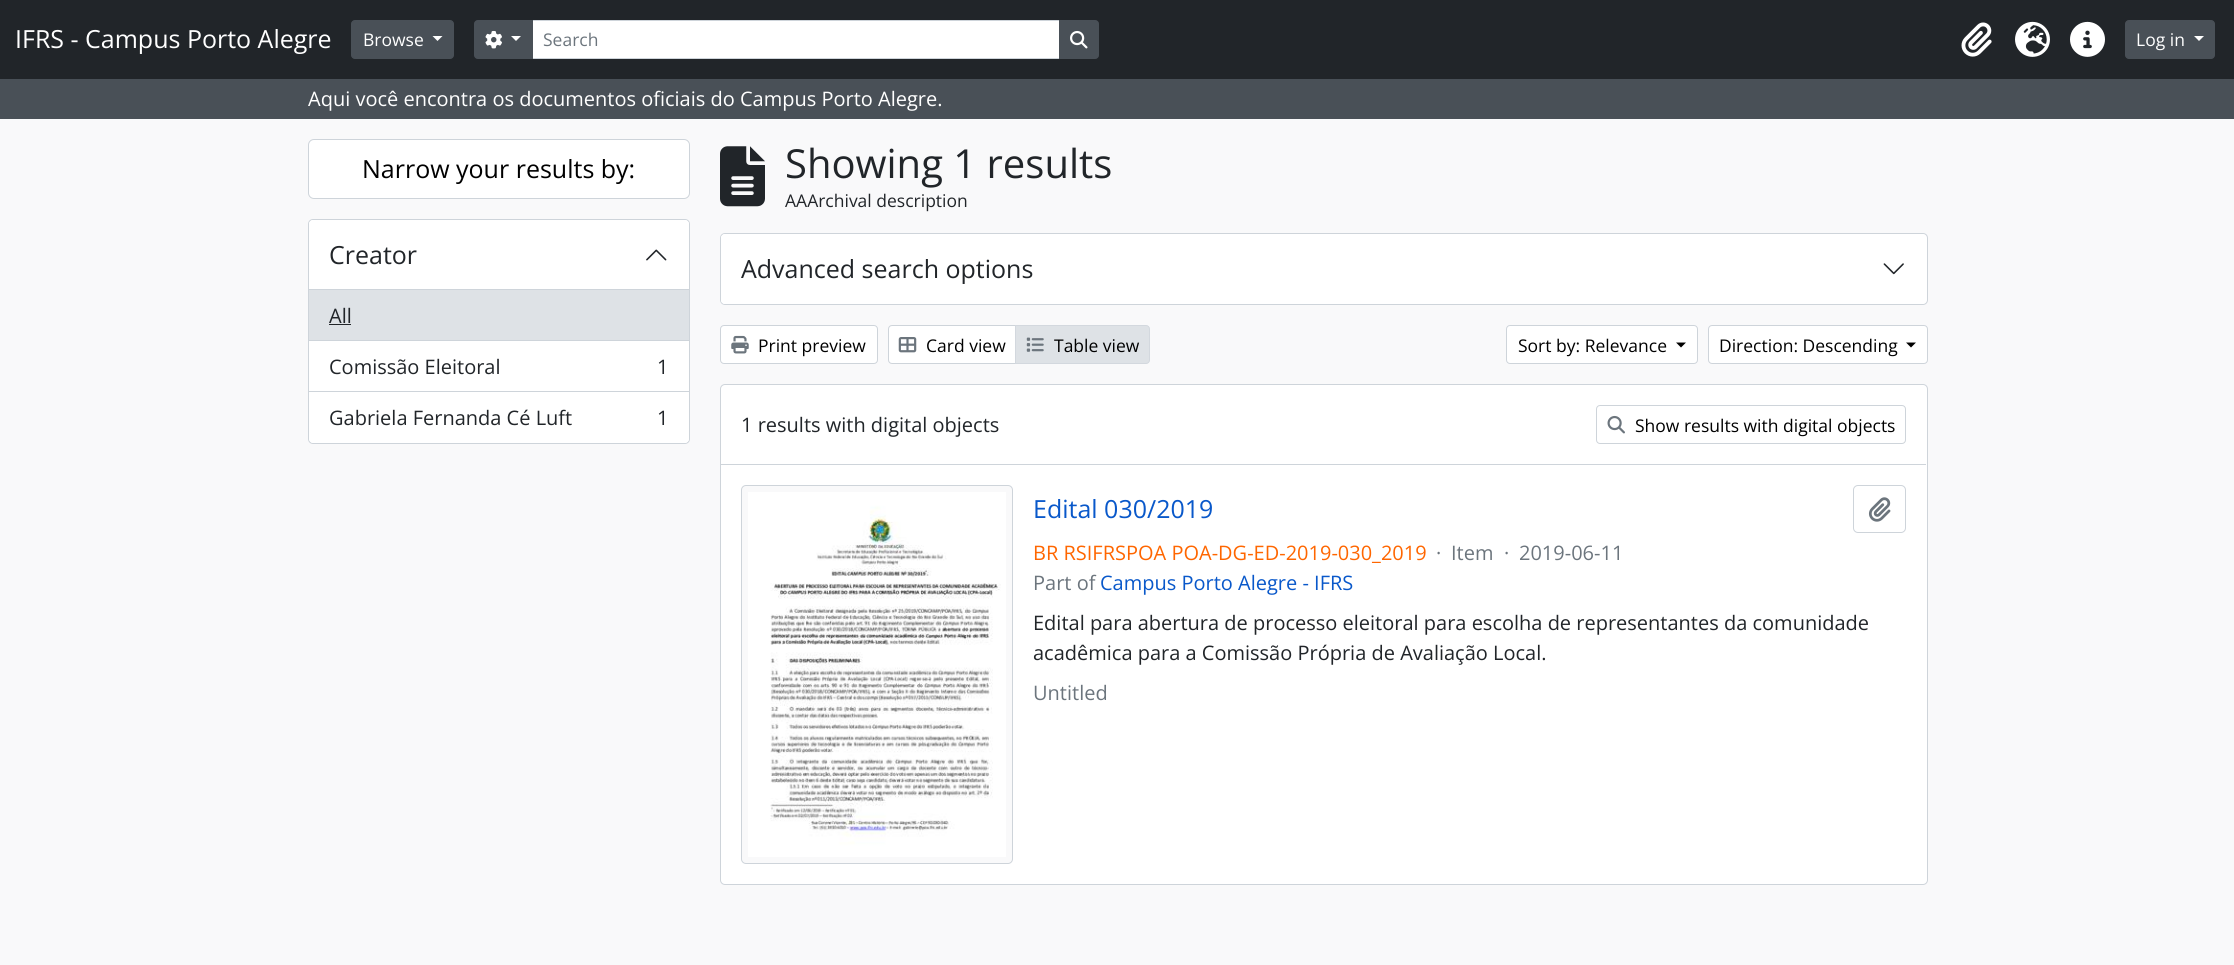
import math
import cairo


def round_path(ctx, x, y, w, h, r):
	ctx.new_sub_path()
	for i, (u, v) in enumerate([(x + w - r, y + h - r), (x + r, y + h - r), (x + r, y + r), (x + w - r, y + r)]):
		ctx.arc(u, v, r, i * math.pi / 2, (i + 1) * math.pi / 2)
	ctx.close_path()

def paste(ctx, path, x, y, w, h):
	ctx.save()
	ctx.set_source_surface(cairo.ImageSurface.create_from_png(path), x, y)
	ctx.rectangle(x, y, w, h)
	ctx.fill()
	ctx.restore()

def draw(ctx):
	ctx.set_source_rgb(0.973, 0.976, 0.98)
	ctx.paint()
	ctx.set_source_rgb(0.129, 0.145, 0.161)
	ctx.rectangle(0, 0, 2234, 79)
	ctx.fill()
	ctx.select_font_face('Open Sans')
	ctx.set_font_size(25)
	ctx.set_source_rgb(1, 1, 1)
	ctx.move_to(15, 48)
	ctx.show_text('IFRS - Campus Porto Alegre')
	ctx.set_source_rgb(0.286, 0.314, 0.341)
	round_path(ctx, 351.5, 20.5, 102, 38, 3.5)
	ctx.fill_preserve()
	ctx.set_line_width(1)
	ctx.stroke()
	ctx.set_font_size(17.5)
	ctx.set_source_rgb(1, 1, 1)
	ctx.move_to(363, 46)
	ctx.show_text('Browse')
	ctx.new_path()
	ctx.move_to(432.5, 36)
	ctx.line_to(442.5, 36)
	ctx.line_to(437.5, 41)
	ctx.close_path()
	ctx.fill()
	ctx.rectangle(533, 21, 526, 37)
	ctx.fill()
	ctx.rectangle(531.5, 20.5, 528, 38)
	ctx.set_source_rgb(0.808, 0.831, 0.855)
	ctx.stroke()
	ctx.set_source_rgb(0.286, 0.314, 0.341)
	ctx.new_path()
	ctx.move_to(478, 20.5)
	ctx.line_to(532.5, 20.5)
	ctx.line_to(532.5, 58.5)
	ctx.line_to(478, 58.5)
	ctx.curve_to(476, 58.5, 474.5, 57, 474.5, 55)
	ctx.line_to(474.5, 24)
	ctx.curve_to(474.5, 22, 476, 20.5, 478, 20.5)
	ctx.close_path()
	ctx.fill_preserve()
	ctx.stroke()
	paste(ctx, 'media/1.png', 485, 30, 17, 19)
	ctx.set_source_rgb(1, 1, 1)
	ctx.new_path()
	ctx.move_to(511, 36)
	ctx.line_to(521, 36)
	ctx.line_to(516, 41)
	ctx.close_path()
	ctx.fill()
	ctx.set_source_rgb(0.424, 0.459, 0.49)
	ctx.move_to(543, 46)
	ctx.show_text('Search')
	ctx.set_source_rgb(0.286, 0.314, 0.341)
	ctx.new_path()
	ctx.move_to(1059.5, 20.5)
	ctx.line_to(1095, 20.5)
	ctx.curve_to(1097, 20.5, 1098.5, 22, 1098.5, 24)
	ctx.line_to(1098.5, 55)
	ctx.curve_to(1098.5, 57, 1097, 58.5, 1095, 58.5)
	ctx.line_to(1059.5, 58.5)
	ctx.close_path()
	ctx.fill_preserve()
	ctx.stroke()
	paste(ctx, 'media/2.png', 1070, 30, 18, 19)
	paste(ctx, 'media/3.png', 1961, 22, 31, 35)
	paste(ctx, 'media/4.png', 2015, 21, 35, 36)
	paste(ctx, 'media/5.png', 2070, 21, 35, 36)
	round_path(ctx, 2125.5, 20.5, 89, 38, 3.5)
	ctx.fill_preserve()
	ctx.stroke()
	ctx.set_source_rgb(1, 1, 1)
	ctx.move_to(2136, 46)
	ctx.show_text('Log in')
	ctx.new_path()
	ctx.move_to(2194, 36)
	ctx.line_to(2204, 36)
	ctx.line_to(2199, 41)
	ctx.close_path()
	ctx.fill()
	ctx.set_source_rgb(0.286, 0.314, 0.341)
	ctx.rectangle(0, 79, 2234, 40)
	ctx.fill()
	ctx.set_font_size(20)
	ctx.set_source_rgb(1, 1, 1)
	ctx.move_to(308, 106)
	ctx.show_text('Aqui você encontra os documentos oficiais do Campus Porto Alegre.')
	round_path(ctx, 308.5, 139.5, 381, 59, 5.5)
	ctx.fill_preserve()
	ctx.set_source_rgb(0.808, 0.831, 0.855)
	ctx.stroke()
	ctx.set_font_size(25)
	ctx.set_source_rgb(0, 0, 0)
	ctx.move_to(362, 178)
	ctx.show_text('Narrow your results by:')
	ctx.set_source_rgb(1, 1, 1)
	round_path(ctx, 308.5, 219.5, 381, 224, 4.5)
	ctx.fill_preserve()
	ctx.set_source_rgb(0.808, 0.831, 0.855)
	ctx.stroke()
	ctx.set_source_rgb(1, 1, 1)
	ctx.new_path()
	ctx.move_to(313, 220)
	ctx.line_to(685, 220)
	ctx.curve_to(687, 220, 689, 222, 689, 224)
	ctx.line_to(689, 290)
	ctx.line_to(309, 290)
	ctx.line_to(309, 224)
	ctx.curve_to(309, 222, 311, 220, 313, 220)
	ctx.close_path()
	ctx.fill()
	ctx.set_source_rgb(0.808, 0.831, 0.855)
	ctx.rectangle(309, 289, 380, 1)
	ctx.fill()
	ctx.set_source_rgb(0.129, 0.145, 0.161)
	ctx.move_to(329, 264)
	ctx.show_text('Creator')
	paste(ctx, 'media/6.png', 646, 249, 21, 12)
	ctx.set_source_rgb(0.871, 0.886, 0.902)
	ctx.rectangle(309, 290, 380, 50)
	ctx.fill()
	ctx.set_source_rgb(0.808, 0.831, 0.855)
	ctx.rectangle(309, 340, 380, 1)
	ctx.fill()
	ctx.set_font_size(20)
	ctx.set_source_rgb(0.129, 0.145, 0.161)
	ctx.move_to(329, 323)
	ctx.show_text('All')
	ctx.rectangle(329, 324, 22, 1)
	ctx.fill()
	ctx.set_source_rgb(0.808, 0.831, 0.855)
	ctx.rectangle(309, 391, 380, 1)
	ctx.fill()
	ctx.set_source_rgb(0.129, 0.145, 0.161)
	ctx.move_to(329, 374)
	ctx.show_text('Comissão Eleitoral')
	ctx.move_to(657, 374)
	ctx.show_text('1')
	ctx.set_source_rgb(1, 1, 1)
	ctx.new_path()
	ctx.move_to(309, 393)
	ctx.line_to(689, 393)
	ctx.line_to(689, 438)
	ctx.curve_to(689, 441, 687, 443, 684, 443)
	ctx.line_to(314, 443)
	ctx.curve_to(311, 443, 309, 441, 309, 438)
	ctx.close_path()
	ctx.fill()
	ctx.set_source_rgb(0.129, 0.145, 0.161)
	ctx.move_to(329, 425)
	ctx.show_text('Gabriela Fernanda Cé Luft')
	ctx.move_to(657, 425)
	ctx.show_text('1')
	paste(ctx, 'media/7.png', 720, 146, 45, 61)
	ctx.set_font_size(40)
	ctx.move_to(785, 178)
	ctx.show_text('Showing 1 results')
	ctx.set_font_size(17.5)
	ctx.move_to(785, 207)
	ctx.show_text('AAArchival description')
	ctx.set_source_rgb(1, 1, 1)
	round_path(ctx, 720.5, 233.5, 1207, 71, 4.5)
	ctx.fill_preserve()
	ctx.set_source_rgb(0.808, 0.831, 0.855)
	ctx.stroke()
	ctx.set_source_rgb(1, 1, 1)
	round_path(ctx, 721, 234, 1205, 70, 4)
	ctx.fill()
	ctx.set_font_size(25)
	ctx.set_source_rgb(0.129, 0.145, 0.161)
	ctx.move_to(741, 278)
	ctx.show_text('Advanced search options')
	paste(ctx, 'media/8.png', 1883, 263, 21, 12)
	ctx.set_source_rgb(1, 1, 1)
	round_path(ctx, 720.5, 325.5, 157, 38, 3.5)
	ctx.fill_preserve()
	ctx.set_source_rgb(0.808, 0.831, 0.855)
	ctx.stroke()
	paste(ctx, 'media/9.png', 731, 335, 18, 19)
	ctx.set_font_size(17.5)
	ctx.set_source_rgb(0, 0, 0)
	ctx.move_to(758, 352)
	ctx.show_text('Print preview')
	ctx.set_source_rgb(1, 1, 1)
	ctx.new_path()
	ctx.move_to(892, 325.5)
	ctx.line_to(1015.5, 325.5)
	ctx.line_to(1015.5, 363.5)
	ctx.line_to(892, 363.5)
	ctx.curve_to(890, 363.5, 888.5, 362, 888.5, 360)
	ctx.line_to(888.5, 329)
	ctx.curve_to(888.5, 327, 890, 325.5, 892, 325.5)
	ctx.close_path()
	ctx.fill_preserve()
	ctx.set_source_rgb(0.808, 0.831, 0.855)
	ctx.stroke()
	paste(ctx, 'media/10.png', 898, 337, 19, 16)
	ctx.set_source_rgb(0, 0, 0)
	ctx.move_to(926, 352)
	ctx.show_text('Card view')
	ctx.set_source_rgb(0.871, 0.886, 0.902)
	ctx.new_path()
	ctx.move_to(1015.5, 325.5)
	ctx.line_to(1146, 325.5)
	ctx.curve_to(1148, 325.5, 1149.5, 327, 1149.5, 329)
	ctx.line_to(1149.5, 360)
	ctx.curve_to(1149.5, 362, 1148, 363.5, 1146, 363.5)
	ctx.line_to(1015.5, 363.5)
	ctx.close_path()
	ctx.fill_preserve()
	ctx.set_source_rgb(0.827, 0.847, 0.871)
	ctx.stroke()
	paste(ctx, 'media/11.png', 1026, 337, 18, 15)
	ctx.set_source_rgb(0, 0, 0)
	ctx.move_to(1054, 352)
	ctx.show_text('Table view')
	ctx.set_source_rgb(1, 1, 1)
	round_path(ctx, 1506.5, 325.5, 191, 38, 3.5)
	ctx.fill_preserve()
	ctx.set_source_rgb(0.808, 0.831, 0.855)
	ctx.stroke()
	ctx.set_source_rgb(0, 0, 0)
	ctx.move_to(1518, 352)
	ctx.show_text('Sort by: Relevance')
	ctx.new_path()
	ctx.move_to(1676, 342.5)
	ctx.line_to(1686, 342.5)
	ctx.line_to(1681, 347.5)
	ctx.close_path()
	ctx.fill()
	ctx.set_source_rgb(1, 1, 1)
	round_path(ctx, 1708.5, 325.5, 219, 38, 3.5)
	ctx.fill_preserve()
	ctx.set_source_rgb(0.808, 0.831, 0.855)
	ctx.stroke()
	ctx.set_source_rgb(0, 0, 0)
	ctx.move_to(1719, 352)
	ctx.show_text('Direction: Descending')
	ctx.new_path()
	ctx.move_to(1906, 342.5)
	ctx.line_to(1916, 342.5)
	ctx.line_to(1911, 347.5)
	ctx.close_path()
	ctx.fill()
	ctx.set_source_rgb(1, 1, 1)
	round_path(ctx, 720.5, 384.5, 1207, 500, 4.5)
	ctx.fill_preserve()
	ctx.set_source_rgb(0.808, 0.831, 0.855)
	ctx.stroke()
	ctx.rectangle(721, 464, 1205, 1)
	ctx.fill()
	ctx.set_font_size(20)
	ctx.set_source_rgb(0.129, 0.145, 0.161)
	ctx.move_to(741, 432)
	ctx.show_text('1 results with digital objects')
	round_path(ctx, 1596.5, 405.5, 309, 38, 3.5)
	ctx.set_source_rgb(0.808, 0.831, 0.855)
	ctx.stroke()
	paste(ctx, 'media/12.png', 1607, 415, 18, 19)
	ctx.set_font_size(17.5)
	ctx.set_source_rgb(0, 0, 0)
	ctx.move_to(1635, 432)
	ctx.show_text('Show results with digital objects')
	ctx.set_source_rgb(0.973, 0.976, 0.98)
	round_path(ctx, 741.5, 485.5, 271, 378, 4.5)
	ctx.fill_preserve()
	ctx.set_source_rgb(0.808, 0.831, 0.855)
	ctx.stroke()
	paste(ctx, 'media/13.png', 748, 492, 258, 365)
	ctx.set_font_size(25)
	ctx.set_source_rgb(0.039, 0.345, 0.792)
	ctx.move_to(1033, 518)
	ctx.show_text('Edital 030/2019')
	round_path(ctx, 1853.5, 485.5, 52, 47, 4.5)
	ctx.set_source_rgb(0.808, 0.831, 0.855)
	ctx.stroke()
	paste(ctx, 'media/14.png', 1868, 497, 23, 25)
	ctx.set_font_size(20)
	ctx.set_source_rgb(1, 0.4, 0)
	ctx.move_to(1033, 560)
	ctx.show_text('BR RSIFRSPOA POA-DG-ED-2019-030_2019')
	ctx.set_source_rgb(0.424, 0.459, 0.49)
	for x, y, s in [
		(1436, 560, '·'),
		(1451, 560, 'Item'),
		(1504, 560, '·'),
		(1519, 560, '2019-06-11'),
		(1033, 590, 'Part of'),
	]:
		ctx.move_to(x, y)
		ctx.show_text(s)
	ctx.set_source_rgb(0.039, 0.345, 0.792)
	ctx.move_to(1100, 590)
	ctx.show_text('Campus Porto Alegre - IFRS')
	ctx.set_source_rgb(0.129, 0.145, 0.161)
	ctx.move_to(1033, 630)
	ctx.show_text('Edital para abertura de processo eleitoral para escolha de representantes da comunidade')
	ctx.move_to(1033, 660)
	ctx.show_text('acadêmica para a Comissão Própria de Avaliação Local.')
	ctx.set_source_rgb(0.424, 0.459, 0.49)
	ctx.move_to(1033, 700)
	ctx.show_text('Untitled')


surface = cairo.ImageSurface(cairo.FORMAT_RGB24, 2234, 965)
ctx = cairo.Context(surface)
options = cairo.FontOptions()
options.set_hint_metrics(cairo.HINT_METRICS_OFF)
options.set_hint_style(cairo.HINT_STYLE_NONE)
ctx.set_font_options(options)
ctx.set_miter_limit(4)
draw(ctx)
surface.write_to_png('image.png')
